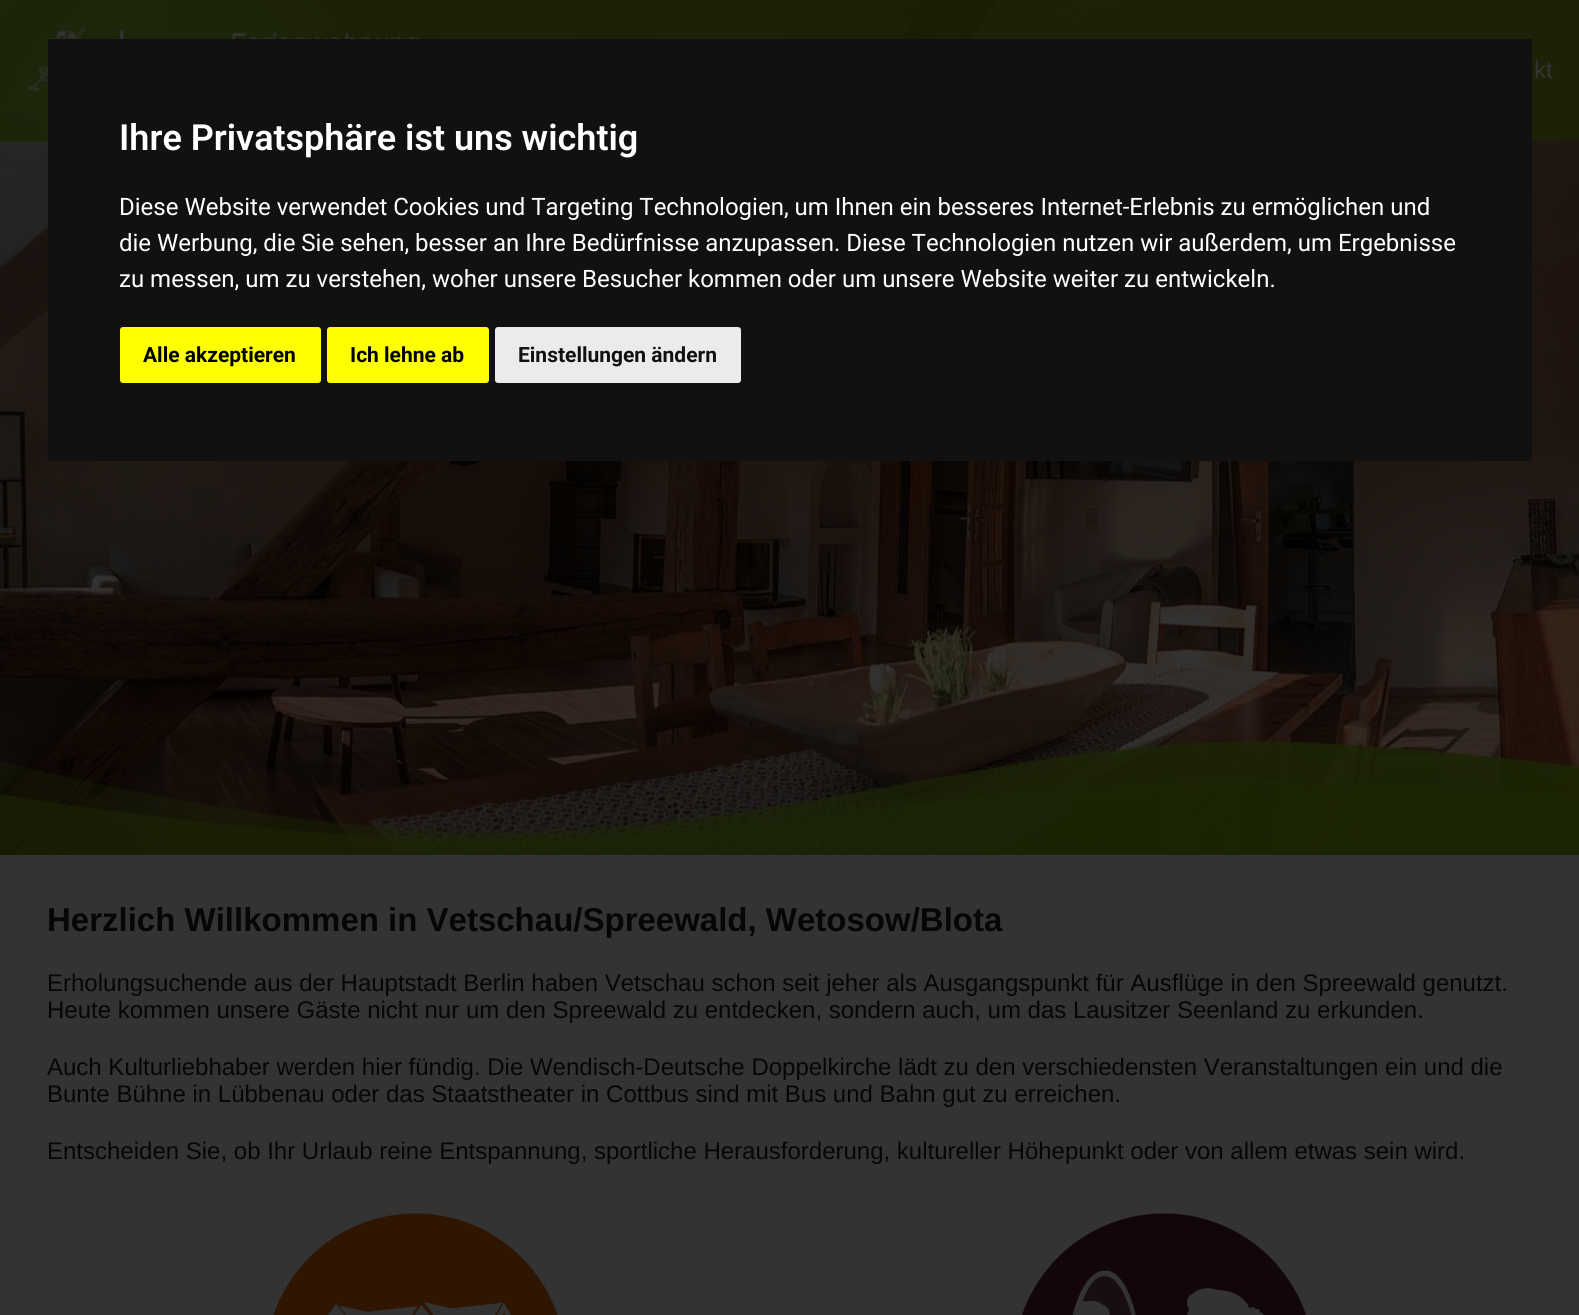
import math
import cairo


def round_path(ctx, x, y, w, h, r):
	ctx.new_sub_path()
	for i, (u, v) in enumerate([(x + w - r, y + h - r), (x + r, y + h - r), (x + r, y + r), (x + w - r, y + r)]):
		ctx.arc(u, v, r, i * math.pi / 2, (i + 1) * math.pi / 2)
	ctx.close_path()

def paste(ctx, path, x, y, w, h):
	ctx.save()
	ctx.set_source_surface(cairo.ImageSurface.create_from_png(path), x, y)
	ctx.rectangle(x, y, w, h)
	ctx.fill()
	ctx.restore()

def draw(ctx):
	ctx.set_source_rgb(0.2, 0.2, 0.2)
	ctx.paint()
	paste(ctx, 'media/1.png', 0, 0, 1579, 855)
	ctx.set_source_rgba(0.106, 0.145, 0.016, 0.8)
	ctx.rectangle(0, 0, 1579, 141)
	ctx.fill()
	paste(ctx, 'media/2.png', 28, 28, 391, 64)
	ctx.select_font_face('Liberation Sans')
	ctx.set_font_size(24)
	ctx.set_source_rgb(0.2, 0.2, 0.2)
	ctx.move_to(1534, 78)
	ctx.show_text('kt')
	ctx.select_font_face('Liberation Sans', cairo.FONT_SLANT_NORMAL, cairo.FONT_WEIGHT_BOLD)
	ctx.set_font_size(33)
	ctx.set_source_rgb(0.027, 0.027, 0.027)
	ctx.move_to(47, 931)
	ctx.show_text('Herzlich Willkommen in Vetschau/Spreewald, Wetosow/Blota')
	ctx.select_font_face('Liberation Sans')
	ctx.set_font_size(24)
	for x, y, s in [
		(47, 991, 'Erholungsuchende aus der Hauptstadt Berlin haben Vetschau schon seit jeher als Ausgangspunkt für Ausflüge in den Spreewald genutzt.'),
		(47, 1018, 'Heute kommen unsere Gäste nicht nur um den Spreewald zu entdecken, sondern auch, um das Lausitzer Seenland zu erkunden.'),
		(47, 1075, 'Auch Kulturliebhaber werden hier fündig. Die Wendisch-Deutsche Doppelkirche lädt zu den verschiedensten Veranstaltungen ein und die'),
		(47, 1102, 'Bunte Bühne in Lübbenau oder das Staatstheater in Cottbus sind mit Bus und Bahn gut zu erreichen.'),
		(47, 1159, 'Entscheiden Sie, ob Ihr Urlaub reine Entspannung, sportliche Herausforderung, kultureller Höhepunkt oder von allem etwas sein wird.'),
	]:
		ctx.move_to(x, y)
		ctx.show_text(s)
	paste(ctx, 'media/3.png', 273, 1213, 285, 102)
	paste(ctx, 'media/4.png', 1022, 1213, 285, 102)
	ctx.set_source_rgb(0.067, 0.067, 0.067)
	ctx.rectangle(48, 39, 1484, 422)
	ctx.fill()
	ctx.select_font_face('Roboto SemiBold')
	ctx.set_font_size(36)
	ctx.set_source_rgb(1, 1, 1)
	ctx.move_to(119, 150)
	ctx.show_text('Ihre Privatsphäre ist uns wichtig')
	ctx.select_font_face('Roboto')
	ctx.set_font_size(24)
	for x, y, s in [
		(119, 215, 'Diese Website verwendet Cookies und Targeting Technologien, um Ihnen ein besseres Internet-Erlebnis zu ermöglichen und'),
		(119, 251, 'die Werbung, die Sie sehen, besser an Ihre Bedürfnisse anzupassen. Diese Technologien nutzen wir außerdem, um Ergebnisse'),
		(119, 287, 'zu messen, um zu verstehen, woher unsere Besucher kommen oder um unsere Website weiter zu entwickeln.'),
	]:
		ctx.move_to(x, y)
		ctx.show_text(s)
	ctx.set_source_rgb(1, 1, 0)
	round_path(ctx, 120, 327, 201, 56, 3)
	ctx.fill()
	ctx.select_font_face('Roboto', cairo.FONT_SLANT_NORMAL, cairo.FONT_WEIGHT_BOLD)
	ctx.set_font_size(21)
	ctx.set_source_rgb(0, 0, 0)
	ctx.move_to(143, 362)
	ctx.show_text('Alle akzeptieren')
	ctx.set_source_rgb(1, 1, 0)
	round_path(ctx, 327, 327, 162, 56, 3)
	ctx.fill()
	ctx.set_source_rgb(0, 0, 0)
	ctx.move_to(350, 362)
	ctx.show_text('Ich lehne ab')
	ctx.set_source_rgb(0.918, 0.918, 0.918)
	round_path(ctx, 495, 327, 246, 56, 3)
	ctx.fill()
	ctx.set_source_rgb(0.067, 0.067, 0.067)
	ctx.move_to(518, 362)
	ctx.show_text('Einstellungen ändern')


surface = cairo.ImageSurface(cairo.FORMAT_RGB24, 1579, 1315)
ctx = cairo.Context(surface)
options = cairo.FontOptions()
options.set_hint_metrics(cairo.HINT_METRICS_OFF)
options.set_hint_style(cairo.HINT_STYLE_NONE)
ctx.set_font_options(options)
ctx.set_miter_limit(4)
draw(ctx)
surface.write_to_png('image.png')
